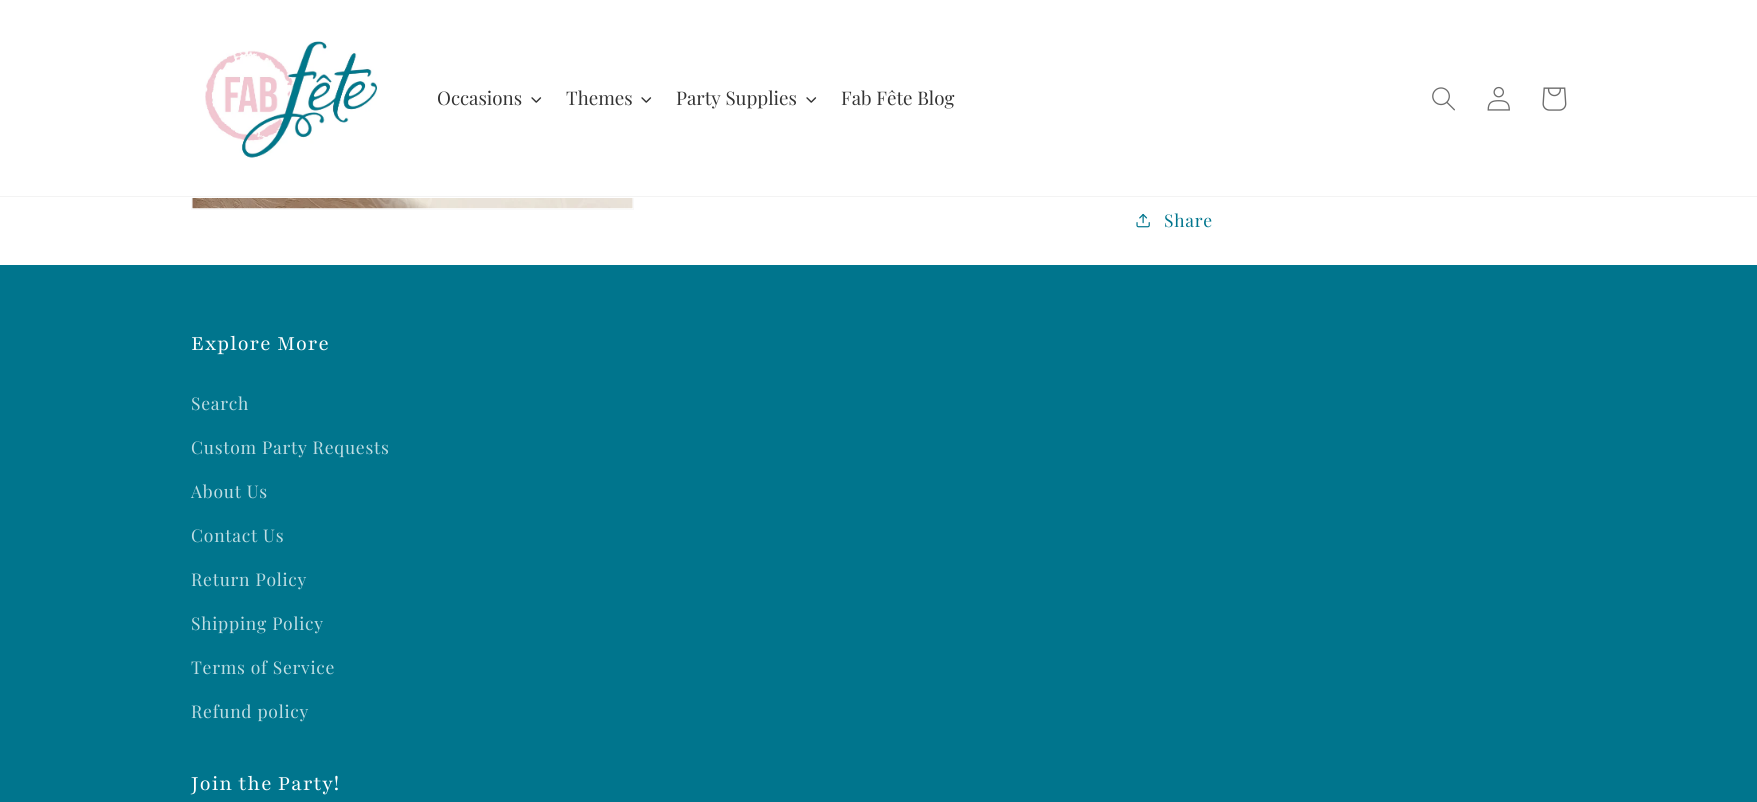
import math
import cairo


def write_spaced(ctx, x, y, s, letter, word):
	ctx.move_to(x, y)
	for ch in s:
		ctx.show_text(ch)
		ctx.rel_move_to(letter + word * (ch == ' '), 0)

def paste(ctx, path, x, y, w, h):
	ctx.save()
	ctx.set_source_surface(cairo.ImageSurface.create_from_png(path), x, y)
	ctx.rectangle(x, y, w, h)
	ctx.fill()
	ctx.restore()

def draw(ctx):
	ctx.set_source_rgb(1, 1, 1)
	ctx.paint()
	ctx.rectangle(191.5, -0.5, 442, 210)
	ctx.set_source_rgb(0.973, 0.973, 0.973)
	ctx.set_line_width(1)
	ctx.stroke()
	ctx.set_source_rgb(1, 1, 1)
	ctx.rectangle(191, 0, 443, 198)
	ctx.fill()
	ctx.set_source_rgb(0.953, 0.953, 0.953)
	ctx.rectangle(0, 196, 1757, 1)
	ctx.fill()
	paste(ctx, 'media/1.png', 205, 41, 173, 117)
	ctx.select_font_face('Playfair Display')
	ctx.set_font_size(18.75)
	ctx.set_source_rgb(0.2, 0.2, 0.2)
	ctx.move_to(437, 105)
	ctx.show_text('Occasions')
	paste(ctx, 'media/2.png', 531, 97, 11, 6)
	ctx.move_to(566, 105)
	ctx.show_text('Themes')
	paste(ctx, 'media/2.png', 641, 97, 11, 6)
	ctx.move_to(676, 105)
	ctx.show_text('Party Supplies')
	paste(ctx, 'media/2.png', 806, 97, 11, 6)
	ctx.move_to(841, 105)
	ctx.show_text('Fab Fête Blog')
	paste(ctx, 'media/3.png', 1432, 87, 23, 24)
	paste(ctx, 'media/4.png', 1487, 86, 23, 25)
	paste(ctx, 'media/5.png', 1542, 87, 25, 24)
	paste(ctx, 'media/6.png', 192, 198, 441, 11)
	paste(ctx, 'media/7.png', 1136, 213, 14, 15)
	ctx.set_font_size(17.5)
	ctx.set_source_rgb(0, 0.459, 0.553)
	write_spaced(ctx, 1164, 227, 'Share', 0.75, 0)
	ctx.rectangle(0, 265, 1757, 537)
	ctx.fill()
	ctx.select_font_face('Playfair')
	ctx.set_font_size(22.5)
	ctx.set_source_rgb(1, 1, 1)
	write_spaced(ctx, 191, 350, 'Explore More', 0.75, 0)
	ctx.select_font_face('Playfair Display')
	ctx.set_font_size(17.5)
	ctx.set_source_rgb(0.749, 0.867, 0.89)
	for x, y, s in [
		(191, 410, 'Search'),
		(191, 454, 'Custom Party Requests'),
		(191, 498, 'About Us'),
		(191, 542, 'Contact Us'),
		(191, 586, 'Return Policy'),
		(191, 630, 'Shipping Policy'),
		(191, 674, 'Terms of Service'),
		(191, 718, 'Refund policy'),
	]:
		write_spaced(ctx, x, y, s, 0.75, 0)
	ctx.select_font_face('Playfair')
	ctx.set_font_size(22.5)
	ctx.set_source_rgb(1, 1, 1)
	write_spaced(ctx, 191, 790, 'Join the Party!', 0.75, 0)


surface = cairo.ImageSurface(cairo.FORMAT_RGB24, 1757, 802)
ctx = cairo.Context(surface)
options = cairo.FontOptions()
options.set_hint_metrics(cairo.HINT_METRICS_OFF)
options.set_hint_style(cairo.HINT_STYLE_NONE)
ctx.set_font_options(options)
ctx.set_miter_limit(4)
draw(ctx)
surface.write_to_png('image.png')
